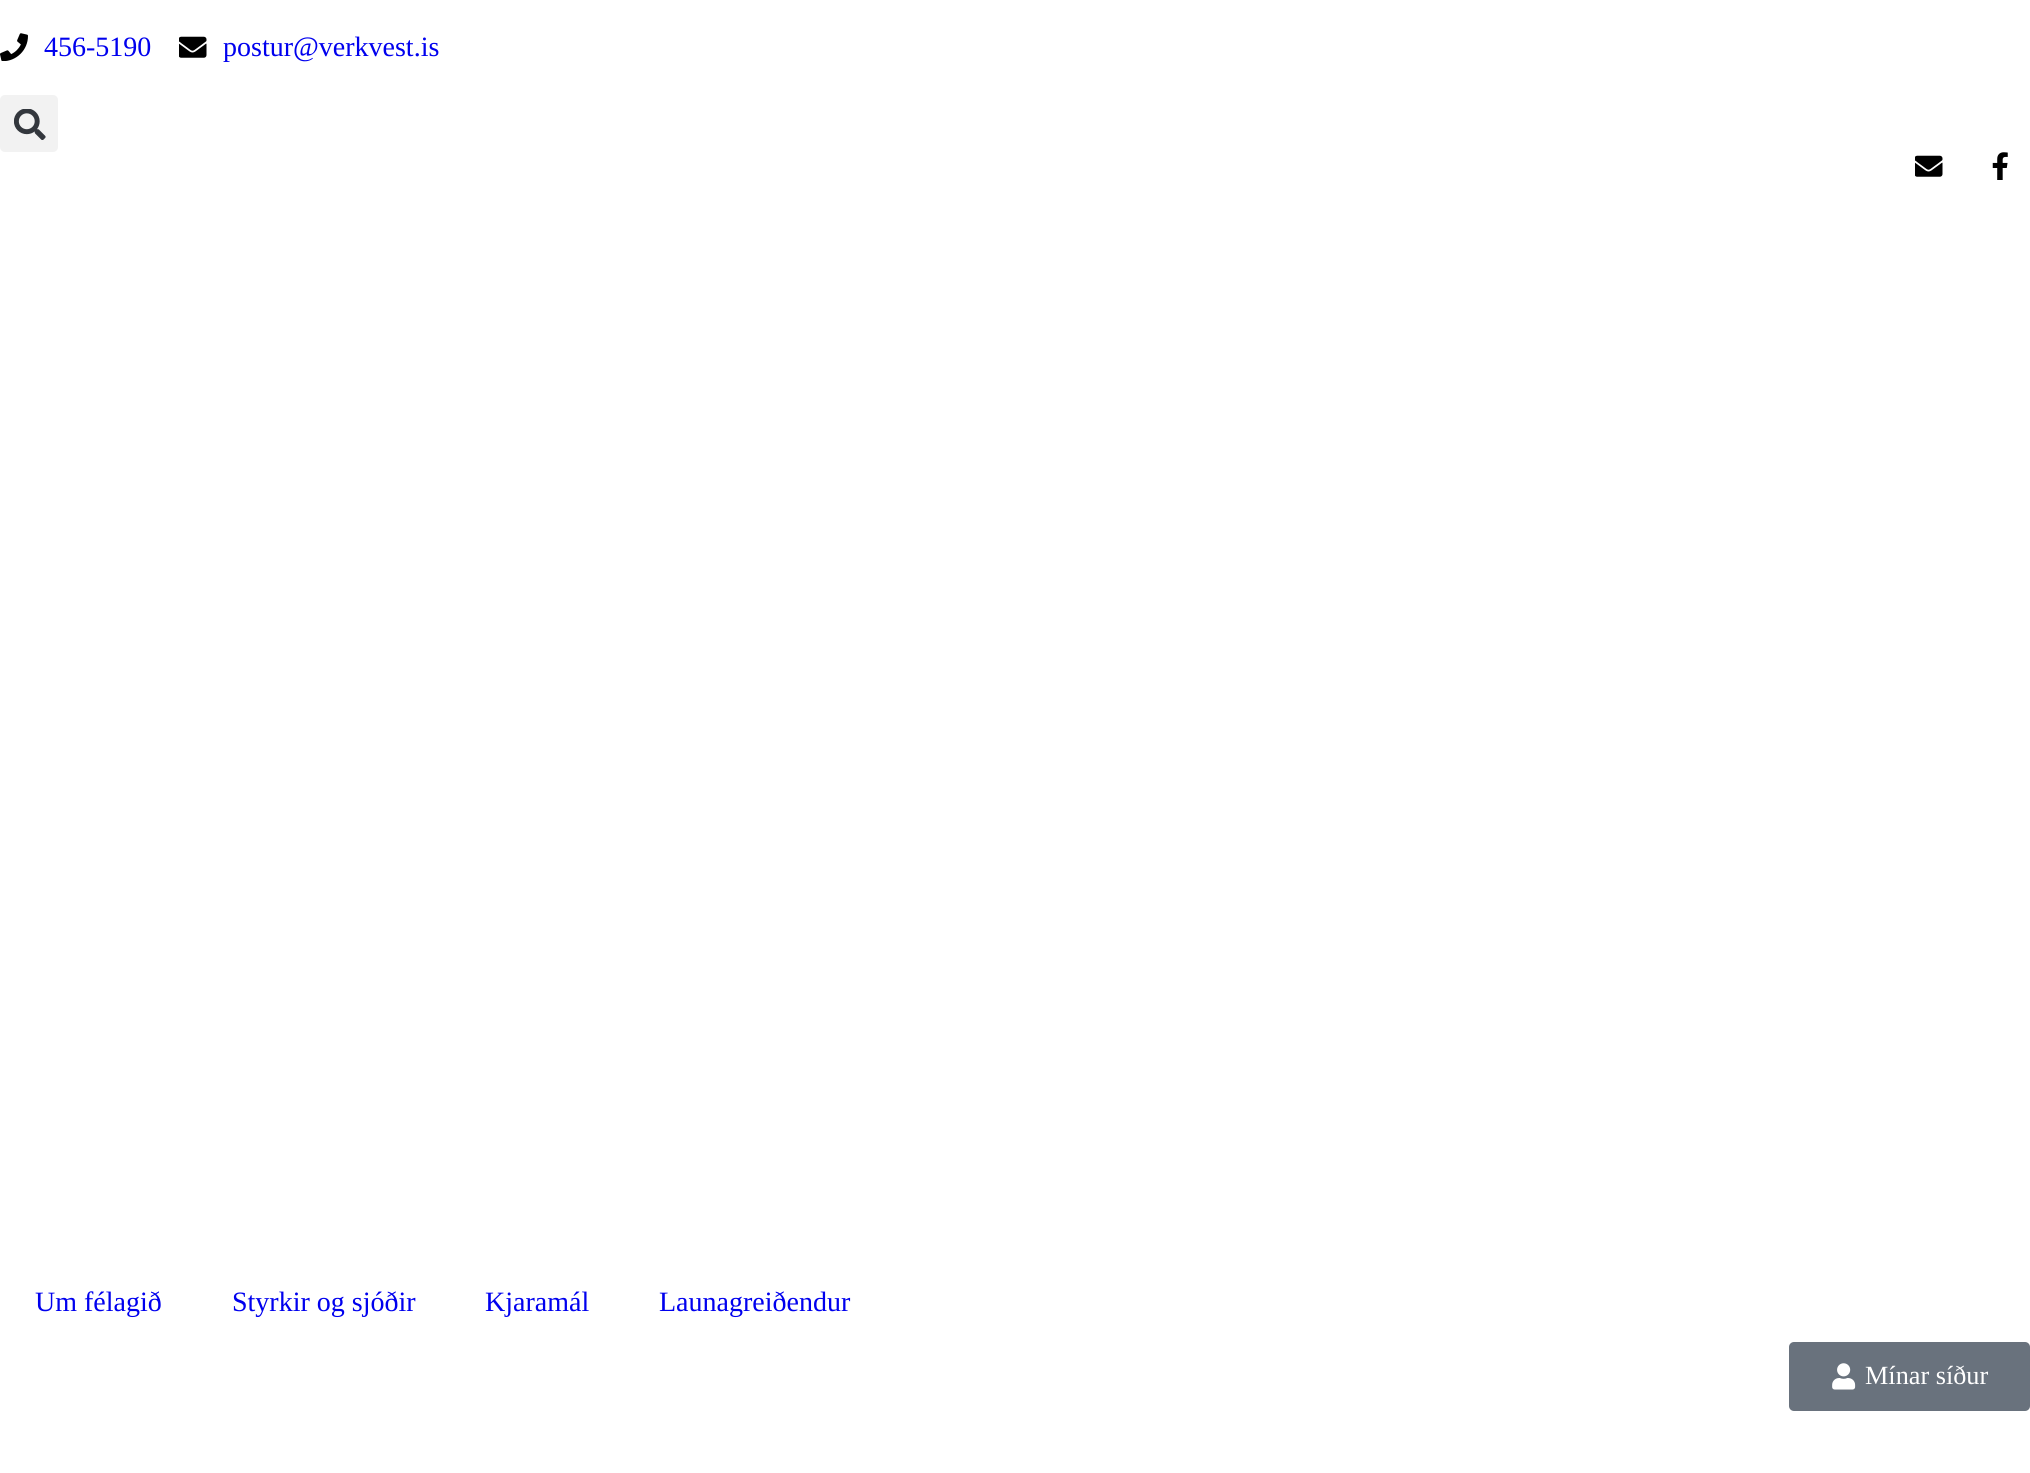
import math
import cairo


def round_path(ctx, x, y, w, h, r):
	ctx.new_sub_path()
	for i, (u, v) in enumerate([(x + w - r, y + h - r), (x + r, y + h - r), (x + r, y + r), (x + w - r, y + r)]):
		ctx.arc(u, v, r, i * math.pi / 2, (i + 1) * math.pi / 2)
	ctx.close_path()

def paste(ctx, path, x, y, w, h):
	ctx.save()
	ctx.set_source_surface(cairo.ImageSurface.create_from_png(path), x, y)
	ctx.rectangle(x, y, w, h)
	ctx.fill()
	ctx.restore()

def draw(ctx):
	ctx.set_source_rgb(1, 1, 1)
	ctx.paint()
	paste(ctx, 'media/1.png', 0, 33, 28, 28)
	ctx.select_font_face('Liberation Serif')
	ctx.set_font_size(28)
	ctx.set_source_rgb(0, 0, 0.933)
	ctx.move_to(44, 56)
	ctx.show_text('456-5190')
	paste(ctx, 'media/2.png', 179, 36, 28, 22)
	ctx.move_to(223, 56)
	ctx.show_text('postur@verkvest.is')
	ctx.set_source_rgb(0.949, 0.949, 0.949)
	round_path(ctx, 0, 95, 58, 57, 5)
	ctx.fill()
	paste(ctx, 'media/3.png', 14, 109, 32, 31)
	paste(ctx, 'media/2.png', 1915, 155, 28, 22)
	paste(ctx, 'media/4.png', 1992, 152, 16, 28)
	ctx.set_source_rgb(0, 0, 0.933)
	for x, y, s in [
		(35, 1311, 'Um félagið'),
		(232, 1311, 'Styrkir og sjóðir'),
		(485, 1311, 'Kjaramál'),
		(659, 1311, 'Launagreiðendur'),
	]:
		ctx.move_to(x, y)
		ctx.show_text(s)
	ctx.set_source_rgb(0.412, 0.447, 0.49)
	round_path(ctx, 1789, 1342, 241, 69, 5)
	ctx.fill()
	paste(ctx, 'media/5.png', 1832, 1363, 24, 27)
	ctx.set_font_size(26.25)
	ctx.set_source_rgb(1, 1, 1)
	ctx.move_to(1865, 1384)
	ctx.show_text('Mínar síður')


surface = cairo.ImageSurface(cairo.FORMAT_RGB24, 2030, 1473)
ctx = cairo.Context(surface)
options = cairo.FontOptions()
options.set_hint_metrics(cairo.HINT_METRICS_OFF)
options.set_hint_style(cairo.HINT_STYLE_NONE)
ctx.set_font_options(options)
ctx.set_miter_limit(4)
draw(ctx)
surface.write_to_png('image.png')
